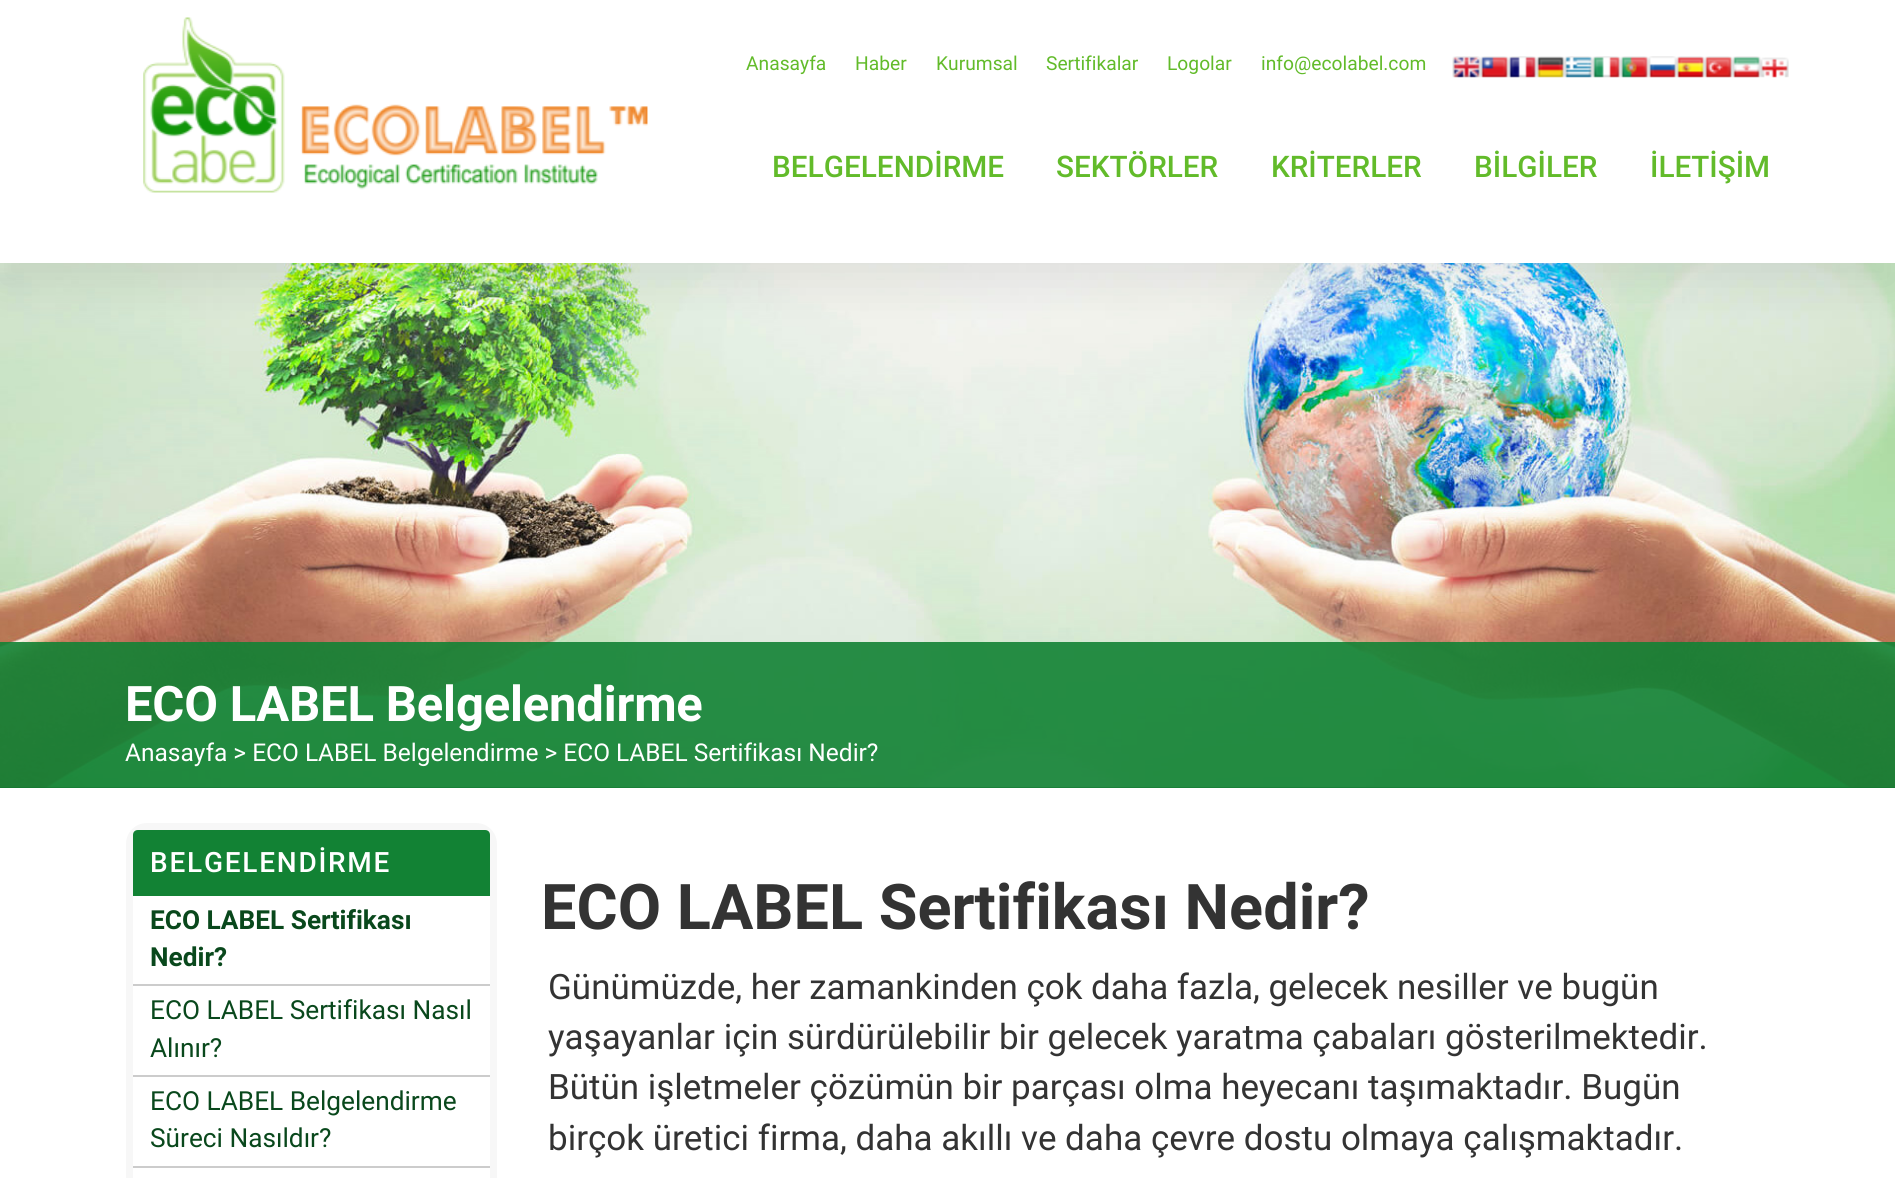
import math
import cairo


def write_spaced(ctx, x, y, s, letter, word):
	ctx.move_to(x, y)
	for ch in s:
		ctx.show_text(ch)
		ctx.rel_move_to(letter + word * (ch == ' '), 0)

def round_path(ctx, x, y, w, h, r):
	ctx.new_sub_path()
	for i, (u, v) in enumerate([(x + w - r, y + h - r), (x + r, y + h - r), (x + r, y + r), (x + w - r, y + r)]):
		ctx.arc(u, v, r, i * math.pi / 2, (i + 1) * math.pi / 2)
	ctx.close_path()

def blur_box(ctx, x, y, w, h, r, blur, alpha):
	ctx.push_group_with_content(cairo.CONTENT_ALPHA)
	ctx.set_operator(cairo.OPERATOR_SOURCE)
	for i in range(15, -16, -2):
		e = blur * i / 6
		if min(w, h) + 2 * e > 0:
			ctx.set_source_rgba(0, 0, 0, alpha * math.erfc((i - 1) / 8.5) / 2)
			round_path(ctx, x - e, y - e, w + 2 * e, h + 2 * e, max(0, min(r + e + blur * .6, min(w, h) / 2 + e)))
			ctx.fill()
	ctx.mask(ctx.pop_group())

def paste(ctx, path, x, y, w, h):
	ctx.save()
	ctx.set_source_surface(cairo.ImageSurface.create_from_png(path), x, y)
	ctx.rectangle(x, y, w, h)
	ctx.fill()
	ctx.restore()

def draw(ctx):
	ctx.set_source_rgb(1, 1, 1)
	ctx.paint()
	ctx.set_source_rgb(0, 0, 0)
	ctx.rectangle(0, 787, 1895, 1)
	ctx.fill()
	paste(ctx, 'media/14.png', 0, 263, 1895, 525)
	ctx.set_source_rgb(0, 0, 0)
	blur_box(ctx, 0, 21, 1895, 263, 0, 23, 0.08)
	ctx.set_source_rgb(1, 1, 1)
	ctx.rectangle(0, 0, 1895, 263)
	ctx.fill()
	ctx.select_font_face('Roboto')
	ctx.set_font_size(19.25)
	ctx.set_source_rgb(0.384, 0.733, 0.165)
	for x, y, s in [
		(746, 70, 'Anasayfa'),
		(855, 70, 'Haber'),
		(936, 70, 'Kurumsal'),
		(1046, 70, 'Sertifikalar'),
		(1167, 70, 'Logolar'),
		(1261, 70, 'info@ecolabel.com'),
	]:
		ctx.move_to(x, y)
		ctx.show_text(s)
	paste(ctx, 'media/1.png', 1452, 56, 29, 22)
	paste(ctx, 'media/2.png', 1480, 56, 29, 22)
	paste(ctx, 'media/3.png', 1508, 56, 29, 22)
	paste(ctx, 'media/4.png', 1536, 56, 29, 22)
	paste(ctx, 'media/5.png', 1564, 56, 29, 22)
	paste(ctx, 'media/6.png', 1592, 56, 29, 22)
	paste(ctx, 'media/7.png', 1620, 56, 29, 22)
	paste(ctx, 'media/8.png', 1648, 56, 29, 22)
	paste(ctx, 'media/9.png', 1676, 56, 29, 22)
	paste(ctx, 'media/10.png', 1704, 56, 29, 22)
	paste(ctx, 'media/11.png', 1732, 56, 29, 22)
	paste(ctx, 'media/12.png', 1760, 57, 29, 21)
	paste(ctx, 'media/13.png', 143, 17, 505, 176)
	ctx.select_font_face('Roboto Medium')
	ctx.set_font_size(29.75)
	for x, y, s in [
		(772, 177, 'BELGELENDİRME'),
		(1056, 177, 'SEKTÖRLER'),
		(1271, 177, 'KRİTERLER'),
		(1474, 177, 'BİLGİLER'),
		(1650, 177, 'İLETİŞİM'),
	]:
		ctx.move_to(x, y)
		ctx.show_text(s)
	ctx.set_source_rgba(0.071, 0.51, 0.204, 0.9)
	ctx.rectangle(0, 642, 1895, 146)
	ctx.fill()
	ctx.select_font_face('Roboto', cairo.FONT_SLANT_NORMAL, cairo.FONT_WEIGHT_BOLD)
	ctx.set_font_size(49)
	ctx.set_source_rgb(1, 1, 1)
	write_spaced(ctx, 125, 721, 'ECO LABEL Belgelendirme', -0.2, 0)
	ctx.select_font_face('Roboto')
	ctx.set_font_size(24.5)
	ctx.move_to(125, 761)
	ctx.show_text('Anasayfa > ECO LABEL Belgelendirme > ECO LABEL Sertifikası Nedir?')
	ctx.set_source_rgb(0.965, 0.965, 0.965)
	round_path(ctx, 126, 823, 371, 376, 21)
	ctx.fill()
	ctx.set_source_rgb(0.071, 0.51, 0.204)
	ctx.new_path()
	ctx.move_to(138, 830)
	ctx.line_to(485, 830)
	ctx.curve_to(488, 830, 490, 832, 490, 835)
	ctx.line_to(490, 896)
	ctx.line_to(133, 896)
	ctx.line_to(133, 835)
	ctx.curve_to(133, 832, 135, 830, 138, 830)
	ctx.close_path()
	ctx.fill()
	ctx.select_font_face('Roboto Medium')
	ctx.set_font_size(28)
	ctx.set_source_rgb(1, 1, 1)
	write_spaced(ctx, 150, 872, 'BELGELENDİRME', 1.75, 0)
	ctx.rectangle(133, 896, 357, 282)
	ctx.fill()
	ctx.set_source_rgb(0.8, 0.8, 0.8)
	ctx.rectangle(133, 984, 357, 2)
	ctx.fill()
	ctx.select_font_face('Roboto', cairo.FONT_SLANT_NORMAL, cairo.FONT_WEIGHT_BOLD)
	ctx.set_font_size(26.25)
	ctx.set_source_rgb(0.039, 0.282, 0.11)
	ctx.move_to(150, 929)
	ctx.show_text('ECO LABEL Sertifikası')
	ctx.move_to(150, 966)
	ctx.show_text('Nedir?')
	ctx.set_source_rgb(0.8, 0.8, 0.8)
	ctx.rectangle(133, 1075, 357, 2)
	ctx.fill()
	ctx.select_font_face('Roboto')
	ctx.set_source_rgb(0.039, 0.282, 0.11)
	ctx.move_to(150, 1019)
	ctx.show_text('ECO LABEL Sertifikası Nasıl')
	ctx.move_to(150, 1057)
	ctx.show_text('Alınır?')
	ctx.set_source_rgb(0.8, 0.8, 0.8)
	ctx.rectangle(133, 1166, 357, 2)
	ctx.fill()
	ctx.set_source_rgb(0.039, 0.282, 0.11)
	ctx.move_to(150, 1110)
	ctx.show_text('ECO LABEL Belgelendirme')
	ctx.move_to(150, 1147)
	ctx.show_text('Süreci Nasıldır?')
	ctx.select_font_face('Roboto', cairo.FONT_SLANT_NORMAL, cairo.FONT_WEIGHT_BOLD)
	ctx.set_font_size(63)
	ctx.set_source_rgb(0.2, 0.2, 0.2)
	ctx.move_to(541, 929)
	ctx.show_text('ECO LABEL Sertifikası Nedir?')
	ctx.select_font_face('Roboto')
	ctx.set_font_size(35)
	for x, y, s in [
		(548, 999, 'Günümüzde, her zamankinden çok daha fazla, gelecek nesiller ve bugün'),
		(548, 1049, 'yaşayanlar için sürdürülebilir bir gelecek yaratma çabaları gösterilmektedir.'),
		(548, 1099, 'Bütün işletmeler çözümün bir parçası olma heyecanı taşımaktadır. Bugün'),
		(548, 1150, 'birçok üretici firma, daha akıllı ve daha çevre dostu olmaya çalışmaktadır.'),
	]:
		ctx.move_to(x, y)
		ctx.show_text(s)


surface = cairo.ImageSurface(cairo.FORMAT_RGB24, 1895, 1178)
ctx = cairo.Context(surface)
options = cairo.FontOptions()
options.set_hint_metrics(cairo.HINT_METRICS_OFF)
options.set_hint_style(cairo.HINT_STYLE_NONE)
ctx.set_font_options(options)
ctx.set_miter_limit(4)
draw(ctx)
surface.write_to_png('image.png')
